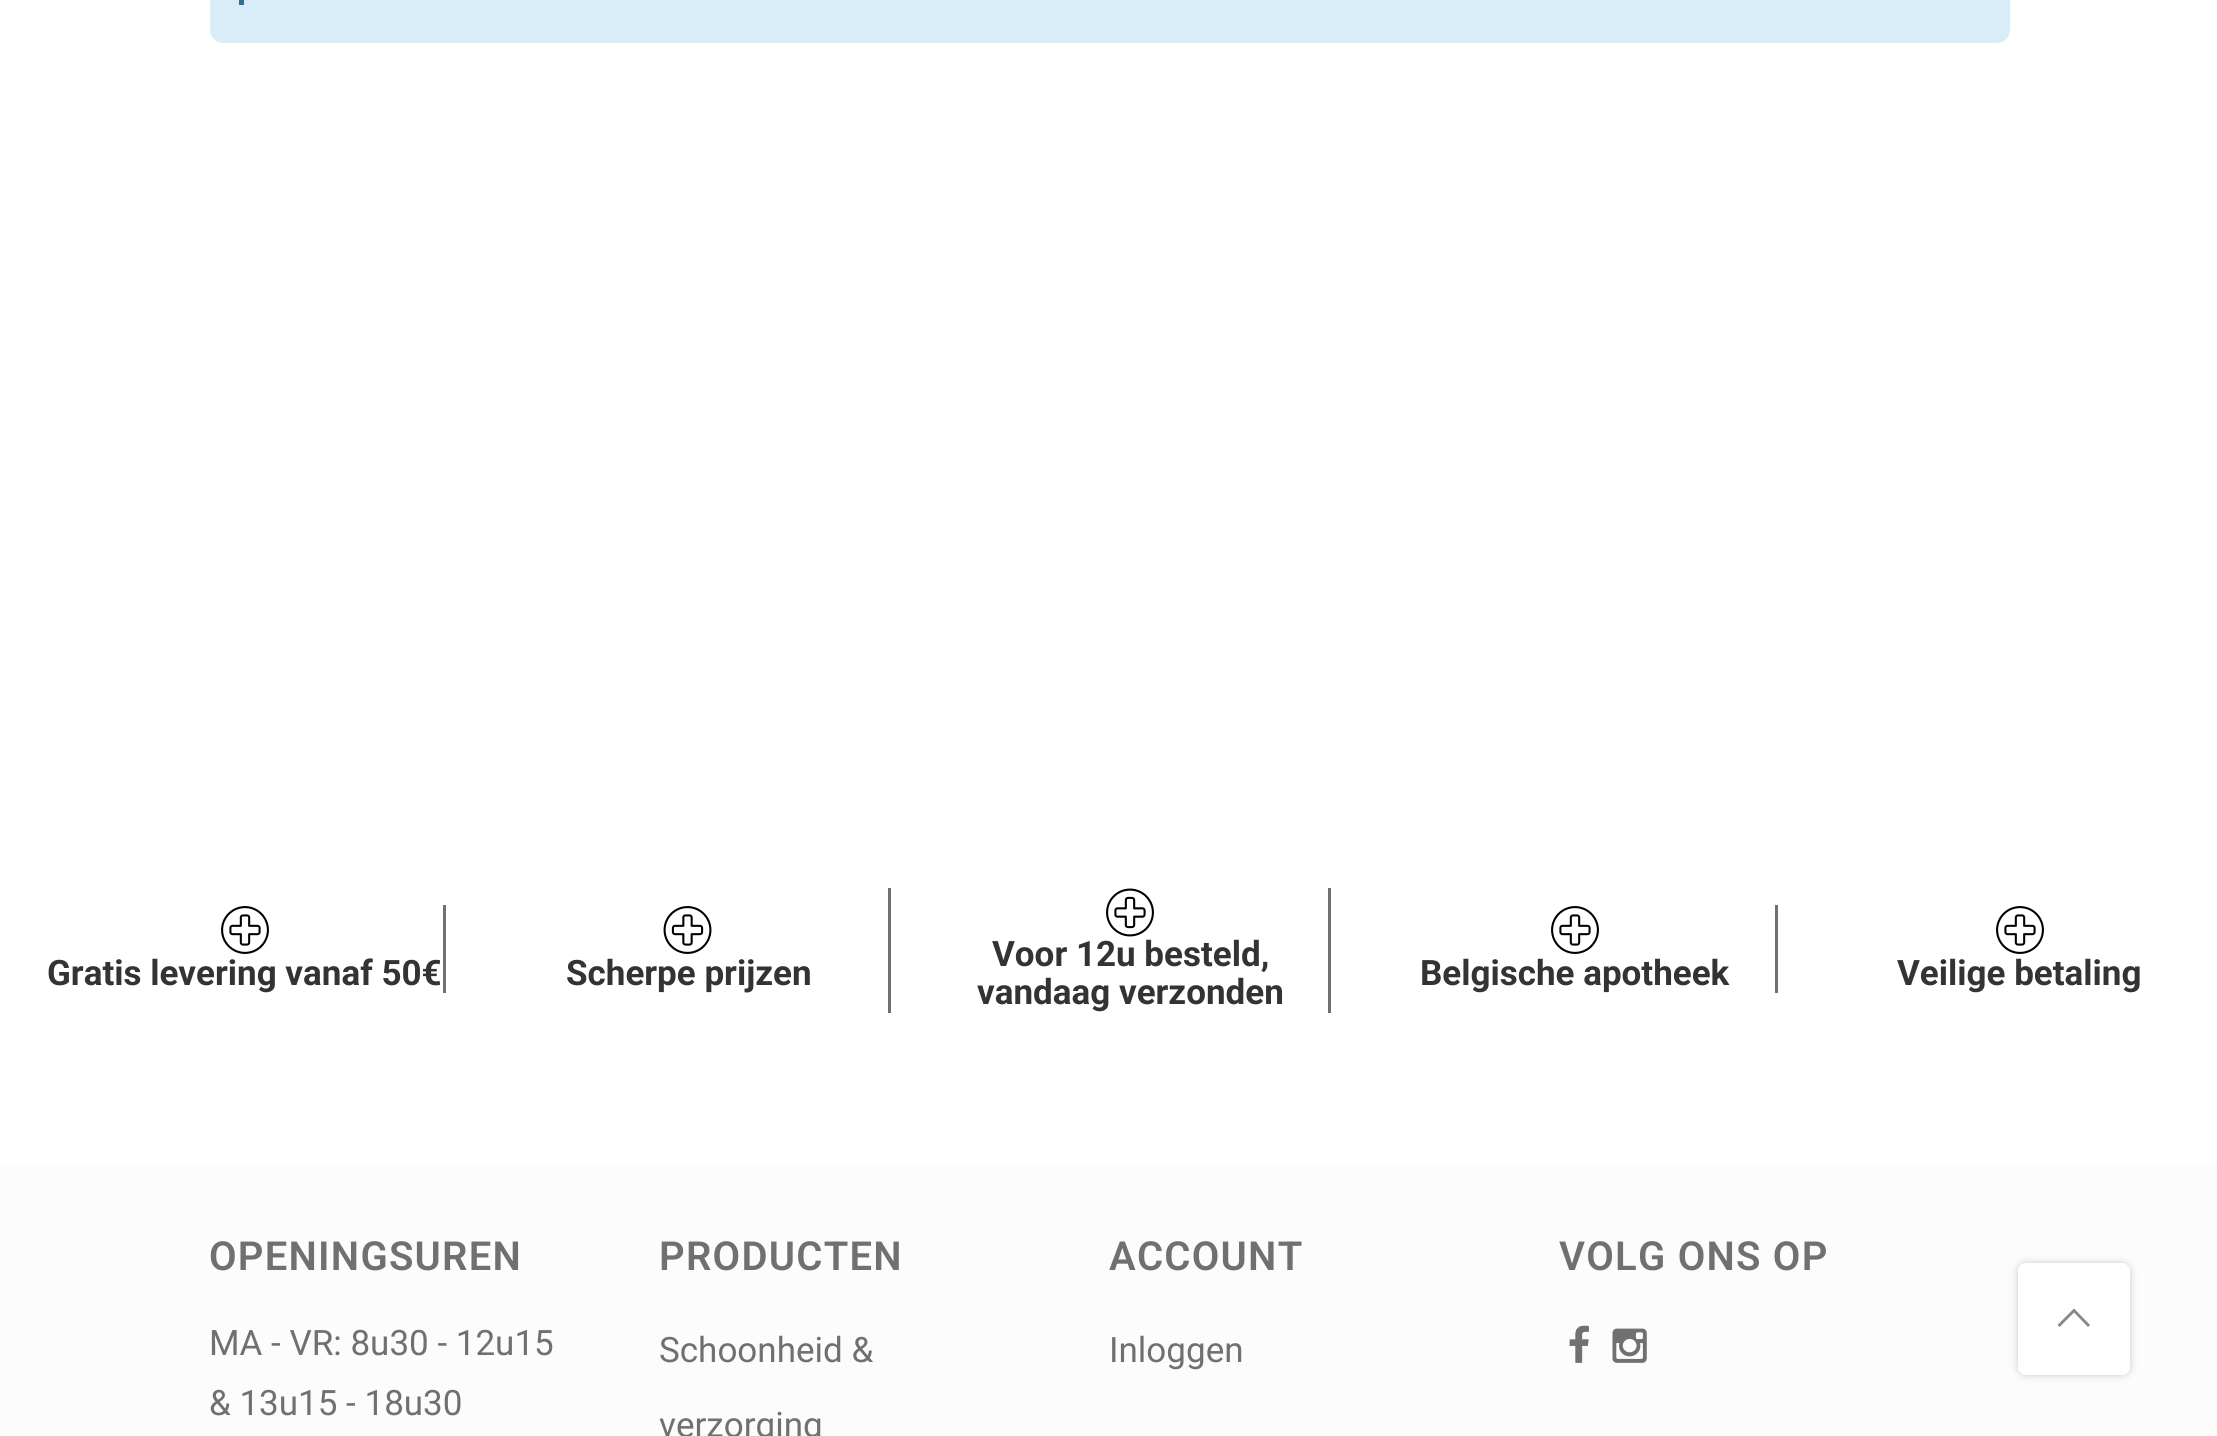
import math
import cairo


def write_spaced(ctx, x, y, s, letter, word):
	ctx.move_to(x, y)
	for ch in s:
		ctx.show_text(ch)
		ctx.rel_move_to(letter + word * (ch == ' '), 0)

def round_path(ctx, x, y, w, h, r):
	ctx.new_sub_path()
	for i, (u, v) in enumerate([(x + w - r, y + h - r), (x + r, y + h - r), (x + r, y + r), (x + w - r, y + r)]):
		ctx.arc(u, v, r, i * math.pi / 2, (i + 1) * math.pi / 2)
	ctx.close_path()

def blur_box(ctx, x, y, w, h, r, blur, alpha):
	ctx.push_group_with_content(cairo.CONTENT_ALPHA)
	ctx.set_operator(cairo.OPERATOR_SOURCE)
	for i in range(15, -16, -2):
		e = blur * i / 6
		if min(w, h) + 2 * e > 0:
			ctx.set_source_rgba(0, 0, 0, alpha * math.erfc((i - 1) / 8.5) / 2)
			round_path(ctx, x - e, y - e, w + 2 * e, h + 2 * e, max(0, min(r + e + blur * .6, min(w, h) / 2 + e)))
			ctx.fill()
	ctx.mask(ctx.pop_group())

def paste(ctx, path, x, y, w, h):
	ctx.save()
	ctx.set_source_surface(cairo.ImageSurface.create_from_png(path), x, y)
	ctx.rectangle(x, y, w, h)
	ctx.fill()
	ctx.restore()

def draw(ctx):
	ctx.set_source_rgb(1, 1, 1)
	ctx.paint()
	ctx.set_source_rgb(0.851, 0.929, 0.969)
	round_path(ctx, 210, -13, 1800, 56, 13)
	ctx.fill()
	ctx.set_source_rgb(0.192, 0.439, 0.561)
	ctx.rectangle(239, 0, 5, 5)
	ctx.fill()
	paste(ctx, 'media/1.png', 221, 906, 48, 48)
	ctx.select_font_face('Roboto', cairo.FONT_SLANT_NORMAL, cairo.FONT_WEIGHT_BOLD)
	ctx.set_font_size(35)
	ctx.set_source_rgb(0.2, 0.2, 0.2)
	ctx.move_to(47, 985)
	ctx.show_text('Gratis levering vanaf 50€')
	ctx.set_source_rgb(0.439, 0.439, 0.439)
	ctx.rectangle(443, 905, 3, 88)
	ctx.fill()
	paste(ctx, 'media/2.png', 663, 906, 49, 48)
	ctx.set_source_rgb(0.2, 0.2, 0.2)
	ctx.move_to(566, 985)
	ctx.show_text('Scherpe prijzen')
	ctx.set_source_rgb(0.439, 0.439, 0.439)
	ctx.rectangle(1328, 888, 3, 125)
	ctx.fill()
	ctx.rectangle(888, 888, 3, 125)
	ctx.fill()
	paste(ctx, 'media/3.png', 1106, 888, 48, 49)
	ctx.set_source_rgb(0.2, 0.2, 0.2)
	ctx.move_to(992, 966)
	ctx.show_text('Voor 12u besteld,')
	ctx.move_to(977, 1004)
	ctx.show_text('vandaag verzonden')
	paste(ctx, 'media/1.png', 1551, 906, 48, 48)
	ctx.move_to(1420, 985)
	ctx.show_text('Belgische apotheek')
	ctx.set_source_rgb(0.439, 0.439, 0.439)
	ctx.rectangle(1775, 905, 3, 88)
	ctx.fill()
	paste(ctx, 'media/1.png', 1996, 906, 48, 48)
	ctx.set_source_rgb(0.2, 0.2, 0.2)
	ctx.move_to(1897, 985)
	ctx.show_text('Veilige betaling')
	ctx.set_source_rgb(0.988, 0.988, 0.988)
	ctx.rectangle(0, 1163, 2217, 273)
	ctx.fill()
	ctx.select_font_face('Roboto SemiBold')
	ctx.set_font_size(40)
	ctx.set_source_rgb(0.439, 0.439, 0.439)
	write_spaced(ctx, 209, 1270, 'OPENINGSUREN', 1.25, 0)
	ctx.select_font_face('Roboto')
	ctx.set_font_size(35)
	ctx.move_to(209, 1355)
	ctx.show_text('MA - VR: 8u30 - 12u15')
	ctx.move_to(209, 1415)
	ctx.show_text('& 13u15 - 18u30')
	ctx.select_font_face('Roboto SemiBold')
	ctx.set_font_size(40)
	write_spaced(ctx, 659, 1270, 'PRODUCTEN', 1.25, 0)
	ctx.select_font_face('Roboto')
	ctx.set_font_size(35)
	ctx.move_to(659, 1362)
	ctx.show_text('Schoonheid &')
	ctx.move_to(659, 1437)
	ctx.show_text('verzorging')
	ctx.select_font_face('Roboto SemiBold')
	ctx.set_font_size(40)
	write_spaced(ctx, 1109, 1270, 'ACCOUNT', 1.25, 0)
	ctx.select_font_face('Roboto')
	ctx.set_font_size(35)
	ctx.move_to(1109, 1362)
	ctx.show_text('Inloggen')
	ctx.select_font_face('Roboto SemiBold')
	ctx.set_font_size(40)
	write_spaced(ctx, 1559, 1270, 'VOLG ONS OP', 1.25, 0)
	paste(ctx, 'media/4.png', 1569, 1325, 20, 38)
	paste(ctx, 'media/5.png', 1612, 1328, 35, 35)
	ctx.set_source_rgb(0, 0, 0)
	blur_box(ctx, 2018, 1263, 112, 112, 8, 4, 0.2)
	ctx.set_source_rgb(1, 1, 1)
	round_path(ctx, 2018, 1263, 112, 112, 8)
	ctx.fill()
	ctx.set_source_rgb(0.529, 0.529, 0.529)
	ctx.new_path()
	ctx.move_to(2076, 1310.5)
	ctx.line_to(2074, 1308.5)
	ctx.line_to(2057.5, 1325)
	ctx.line_to(2059.5, 1327)
	ctx.line_to(2074, 1312.5)
	ctx.line_to(2088, 1327)
	ctx.line_to(2090, 1325)
	ctx.close_path()
	ctx.fill()


surface = cairo.ImageSurface(cairo.FORMAT_RGB24, 2217, 1436)
ctx = cairo.Context(surface)
options = cairo.FontOptions()
options.set_hint_metrics(cairo.HINT_METRICS_OFF)
options.set_hint_style(cairo.HINT_STYLE_NONE)
ctx.set_font_options(options)
ctx.set_miter_limit(4)
draw(ctx)
surface.write_to_png('image.png')
